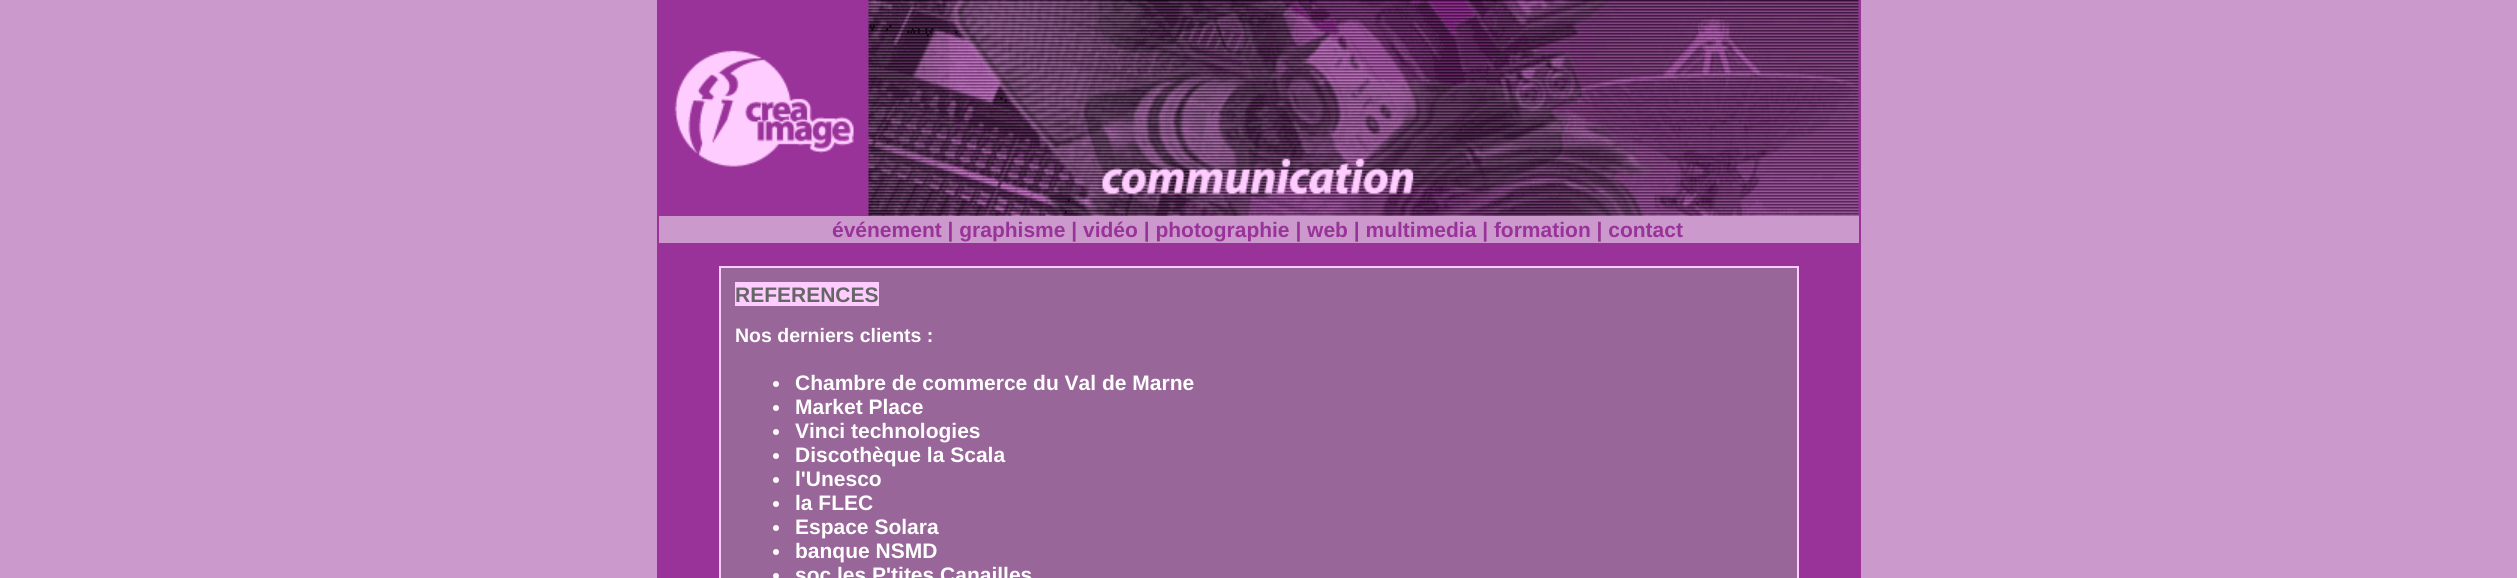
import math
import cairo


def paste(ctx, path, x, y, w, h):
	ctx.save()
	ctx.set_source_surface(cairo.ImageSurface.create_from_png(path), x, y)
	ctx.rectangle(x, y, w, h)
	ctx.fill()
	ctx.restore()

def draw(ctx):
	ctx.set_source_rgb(0.8, 0.6, 0.8)
	ctx.paint()
	ctx.set_source_rgb(0.6, 0.2, 0.6)
	ctx.rectangle(657, 0, 1204, 578)
	ctx.fill()
	paste(ctx, 'media/1.png', 674, 0, 1185, 216)
	ctx.set_source_rgb(0.8, 0.6, 0.8)
	ctx.rectangle(659, 216, 1200, 27)
	ctx.fill()
	ctx.select_font_face('Liberation Sans', cairo.FONT_SLANT_NORMAL, cairo.FONT_WEIGHT_BOLD)
	ctx.set_font_size(21)
	ctx.set_source_rgb(0.6, 0.2, 0.6)
	ctx.move_to(832, 237)
	ctx.show_text('événement | graphisme | vidéo | photographie | web | multimedia | formation | contact')
	ctx.set_source_rgb(0.6, 0.4, 0.6)
	ctx.rectangle(720, 267, 1078, 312)
	ctx.fill_preserve()
	ctx.set_source_rgb(1, 0.8, 1)
	ctx.stroke()
	ctx.rectangle(735, 282, 144, 24)
	ctx.fill()
	ctx.set_source_rgb(0.4, 0.4, 0.4)
	ctx.move_to(735, 302)
	ctx.show_text('REFERENCES')
	ctx.set_font_size(19.5)
	ctx.set_source_rgb(1, 1, 1)
	ctx.move_to(735, 342)
	ctx.show_text('Nos derniers clients :')
	ctx.new_path()
	ctx.arc(776, 384, 3, 0, 2 * math.pi)
	ctx.fill()
	ctx.set_font_size(21)
	ctx.move_to(795, 390)
	ctx.show_text('Chambre de commerce du Val de Marne')
	ctx.new_path()
	ctx.arc(776, 408, 3, 0, 2 * math.pi)
	ctx.fill()
	ctx.move_to(795, 414)
	ctx.show_text('Market Place')
	ctx.new_path()
	ctx.arc(776, 432, 3, 0, 2 * math.pi)
	ctx.fill()
	ctx.move_to(795, 438)
	ctx.show_text('Vinci technologies')
	ctx.new_path()
	ctx.arc(776, 456, 3, 0, 2 * math.pi)
	ctx.fill()
	ctx.move_to(795, 462)
	ctx.show_text('Discothèque la Scala')
	ctx.new_path()
	ctx.arc(776, 480, 3, 0, 2 * math.pi)
	ctx.fill()
	ctx.move_to(795, 486)
	ctx.show_text('l\'Unesco')
	ctx.new_path()
	ctx.arc(776, 504, 3, 0, 2 * math.pi)
	ctx.fill()
	ctx.move_to(795, 510)
	ctx.show_text('la FLEC')
	ctx.new_path()
	ctx.arc(776, 528, 3, 0, 2 * math.pi)
	ctx.fill()
	ctx.move_to(795, 534)
	ctx.show_text('Espace Solara')
	ctx.new_path()
	ctx.arc(776, 552, 3, 0, 2 * math.pi)
	ctx.fill()
	ctx.move_to(795, 558)
	ctx.show_text('banque NSMD')
	ctx.new_path()
	ctx.arc(776, 576, 3, 0, 2 * math.pi)
	ctx.fill()
	ctx.move_to(795, 582)
	ctx.show_text('soc les P\'tites Canailles')


surface = cairo.ImageSurface(cairo.FORMAT_RGB24, 2517, 578)
ctx = cairo.Context(surface)
options = cairo.FontOptions()
options.set_hint_metrics(cairo.HINT_METRICS_OFF)
options.set_hint_style(cairo.HINT_STYLE_NONE)
ctx.set_font_options(options)
ctx.set_miter_limit(4)
draw(ctx)
surface.write_to_png('image.png')
